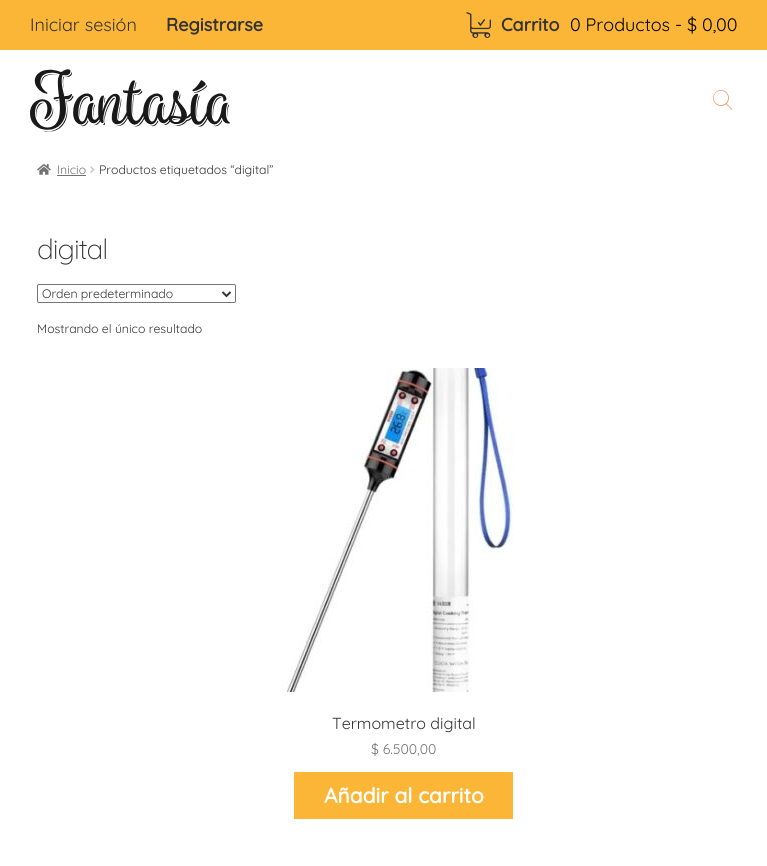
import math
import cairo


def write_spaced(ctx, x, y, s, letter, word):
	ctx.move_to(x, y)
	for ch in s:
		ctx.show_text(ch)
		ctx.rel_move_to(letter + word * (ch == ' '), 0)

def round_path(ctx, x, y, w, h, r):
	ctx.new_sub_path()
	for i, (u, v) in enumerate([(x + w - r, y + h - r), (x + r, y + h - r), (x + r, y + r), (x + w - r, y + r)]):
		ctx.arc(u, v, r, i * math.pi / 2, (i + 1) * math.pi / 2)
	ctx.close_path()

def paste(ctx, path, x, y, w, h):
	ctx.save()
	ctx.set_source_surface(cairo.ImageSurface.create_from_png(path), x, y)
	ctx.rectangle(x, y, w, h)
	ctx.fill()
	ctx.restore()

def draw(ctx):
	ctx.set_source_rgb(1, 1, 1)
	ctx.paint()
	ctx.set_source_rgb(0.984, 0.714, 0.216)
	ctx.rectangle(0, 0, 767, 50)
	ctx.fill()
	ctx.select_font_face('Quicksand')
	ctx.set_font_size(18)
	ctx.set_source_rgb(0.2, 0.2, 0.2)
	ctx.move_to(30, 31)
	ctx.show_text('Iniciar sesión')
	ctx.select_font_face('Quicksand', cairo.FONT_SLANT_NORMAL, cairo.FONT_WEIGHT_BOLD)
	ctx.move_to(166, 31)
	ctx.show_text('Registrarse')
	paste(ctx, 'media/1.png', 466, 12, 25, 26)
	ctx.move_to(501, 31)
	ctx.show_text('Carrito')
	ctx.select_font_face('Quicksand')
	ctx.set_source_rgb(0, 0, 0)
	ctx.move_to(570, 31)
	ctx.show_text('0 Productos - $ 0,00')
	paste(ctx, 'media/2.png', 30, 69, 200, 63)
	paste(ctx, 'media/3.png', 713, 90, 20, 20)
	paste(ctx, 'media/4.png', 37, 164, 14, 11)
	ctx.set_font_size(12.25)
	ctx.set_source_rgb(0.447, 0.447, 0.447)
	ctx.move_to(57, 174)
	ctx.show_text('Inicio')
	ctx.rectangle(57, 175, 29, 1)
	ctx.fill()
	paste(ctx, 'media/5.png', 90, 166, 5, 7)
	ctx.set_source_rgb(0.2, 0.2, 0.2)
	ctx.move_to(99, 174)
	ctx.show_text('Productos etiquetados “digital”')
	ctx.select_font_face('Quicksand Light')
	ctx.set_font_size(28)
	write_spaced(ctx, 37, 259, 'digital', -1, 0)
	round_path(ctx, 37.5, 284.5, 198, 18, 1.5)
	ctx.set_source_rgb(0.463, 0.463, 0.463)
	ctx.set_line_width(1)
	ctx.stroke()
	ctx.new_path()
	ctx.move_to(222.5, 292)
	ctx.line_to(226.5, 296)
	ctx.line_to(230.5, 292)
	ctx.set_source_rgb(0.2, 0.2, 0.2)
	ctx.set_line_width(2)
	ctx.stroke()
	ctx.select_font_face('Quicksand')
	ctx.set_font_size(12.25)
	ctx.move_to(42, 298)
	ctx.show_text('Orden predeterminado')
	ctx.move_to(37, 333)
	ctx.show_text('Mostrando el único resultado')
	paste(ctx, 'media/6.png', 282, 368, 233, 324)
	ctx.set_font_size(16)
	ctx.move_to(332, 729)
	ctx.show_text('Termometro digital')
	ctx.set_font_size(14)
	ctx.set_source_rgb(0.447, 0.447, 0.447)
	ctx.move_to(371, 754)
	ctx.show_text('$ 6.500,00')
	ctx.set_source_rgb(0.984, 0.714, 0.216)
	ctx.rectangle(294, 772, 219, 47)
	ctx.fill()
	ctx.select_font_face('Quicksand', cairo.FONT_SLANT_NORMAL, cairo.FONT_WEIGHT_BOLD)
	ctx.set_font_size(21)
	ctx.set_source_rgb(1, 1, 1)
	ctx.move_to(324, 803)
	ctx.show_text('Añadir al carrito')


surface = cairo.ImageSurface(cairo.FORMAT_RGB24, 767, 866)
ctx = cairo.Context(surface)
options = cairo.FontOptions()
options.set_hint_metrics(cairo.HINT_METRICS_OFF)
options.set_hint_style(cairo.HINT_STYLE_NONE)
ctx.set_font_options(options)
ctx.set_miter_limit(4)
draw(ctx)
surface.write_to_png('image.png')
